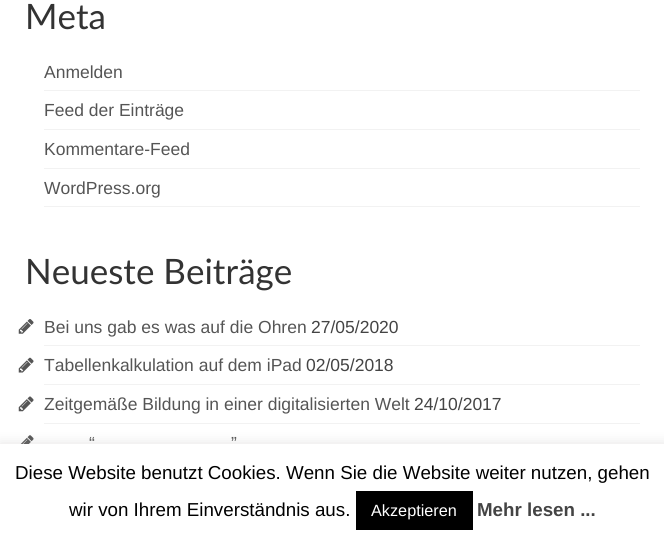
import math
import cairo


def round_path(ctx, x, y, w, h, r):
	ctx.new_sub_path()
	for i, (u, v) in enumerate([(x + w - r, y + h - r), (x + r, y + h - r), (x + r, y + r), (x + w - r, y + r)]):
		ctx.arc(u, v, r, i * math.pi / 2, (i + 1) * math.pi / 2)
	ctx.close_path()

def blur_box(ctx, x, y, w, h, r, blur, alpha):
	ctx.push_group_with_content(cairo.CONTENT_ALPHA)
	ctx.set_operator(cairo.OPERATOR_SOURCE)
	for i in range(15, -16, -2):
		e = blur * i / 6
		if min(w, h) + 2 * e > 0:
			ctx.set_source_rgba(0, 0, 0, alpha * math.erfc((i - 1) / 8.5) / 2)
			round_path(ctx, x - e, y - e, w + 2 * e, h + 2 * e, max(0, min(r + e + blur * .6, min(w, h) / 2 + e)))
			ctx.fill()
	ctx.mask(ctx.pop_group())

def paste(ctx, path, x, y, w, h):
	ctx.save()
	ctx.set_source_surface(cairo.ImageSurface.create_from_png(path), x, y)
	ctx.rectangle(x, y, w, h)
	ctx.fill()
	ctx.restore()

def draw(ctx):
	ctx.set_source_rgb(1, 1, 1)
	ctx.paint()
	ctx.select_font_face('Lato')
	ctx.set_font_size(35)
	ctx.set_source_rgb(0.2, 0.2, 0.2)
	ctx.move_to(25, 29)
	ctx.show_text('Meta')
	ctx.set_source_rgb(0.949, 0.949, 0.949)
	ctx.rectangle(44, 90, 596, 1)
	ctx.fill()
	ctx.select_font_face('Liberation Sans')
	ctx.set_font_size(17.5)
	ctx.set_source_rgb(0.333, 0.333, 0.333)
	ctx.move_to(44, 78)
	ctx.show_text('Anmelden')
	ctx.set_source_rgb(0.949, 0.949, 0.949)
	ctx.rectangle(44, 129, 596, 1)
	ctx.fill()
	ctx.set_source_rgb(0.333, 0.333, 0.333)
	ctx.move_to(44, 116)
	ctx.show_text('Feed der Einträge')
	ctx.set_source_rgb(0.949, 0.949, 0.949)
	ctx.rectangle(44, 168, 596, 1)
	ctx.fill()
	ctx.set_source_rgb(0.333, 0.333, 0.333)
	ctx.move_to(44, 155)
	ctx.show_text('Kommentare-Feed')
	ctx.set_source_rgb(0.949, 0.949, 0.949)
	ctx.rectangle(44, 206, 596, 1)
	ctx.fill()
	ctx.set_source_rgb(0.333, 0.333, 0.333)
	ctx.move_to(44, 194)
	ctx.show_text('WordPress.org')
	ctx.select_font_face('Lato')
	ctx.set_font_size(35)
	ctx.set_source_rgb(0.2, 0.2, 0.2)
	ctx.move_to(25, 284)
	ctx.show_text('Neueste Beiträge')
	ctx.set_source_rgb(0.949, 0.949, 0.949)
	ctx.rectangle(44, 345, 596, 1)
	ctx.fill()
	paste(ctx, 'media/1.png', 18, 319, 16, 15)
	ctx.select_font_face('Liberation Sans')
	ctx.set_font_size(17.5)
	ctx.set_source_rgb(0.333, 0.333, 0.333)
	ctx.move_to(44, 333)
	ctx.show_text('Bei uns gab es was auf die Ohren')
	ctx.set_source_rgb(0.267, 0.267, 0.267)
	ctx.move_to(311, 333)
	ctx.show_text('27/05/2020')
	ctx.set_source_rgb(0.949, 0.949, 0.949)
	ctx.rectangle(44, 384, 596, 1)
	ctx.fill()
	paste(ctx, 'media/2.png', 18, 357, 16, 16)
	ctx.set_source_rgb(0.333, 0.333, 0.333)
	ctx.move_to(44, 371)
	ctx.show_text('Tabellenkalkulation auf dem iPad')
	ctx.set_source_rgb(0.267, 0.267, 0.267)
	ctx.move_to(306, 371)
	ctx.show_text('02/05/2018')
	ctx.set_source_rgb(0.949, 0.949, 0.949)
	ctx.rectangle(44, 423, 596, 1)
	ctx.fill()
	paste(ctx, 'media/3.png', 18, 396, 16, 16)
	ctx.set_source_rgb(0.333, 0.333, 0.333)
	ctx.move_to(44, 410)
	ctx.show_text('Zeitgemäße Bildung in einer digitalisierten Welt')
	ctx.set_source_rgb(0.267, 0.267, 0.267)
	ctx.move_to(414, 410)
	ctx.show_text('24/10/2017')
	paste(ctx, 'media/4.png', 20, 435, 14, 9)
	ctx.set_source_rgb(0.333, 0.333, 0.333)
	ctx.move_to(89, 449)
	ctx.show_text('“')
	ctx.move_to(231, 449)
	ctx.show_text('”')
	ctx.set_source_rgb(0.675, 0.671, 0.671)
	blur_box(ctx, 0, 443, 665, 101, 0, 6, 0.3)
	ctx.set_source_rgb(1, 1, 1)
	ctx.rectangle(0, 444, 664, 100)
	ctx.fill()
	ctx.set_font_size(18.75)
	ctx.set_source_rgb(0, 0, 0)
	ctx.move_to(15, 479)
	ctx.show_text('Diese Website benutzt Cookies. Wenn Sie die Website weiter nutzen, gehen')
	ctx.move_to(69, 516)
	ctx.show_text('wir von Ihrem Einverständnis aus.')
	ctx.rectangle(356, 491, 117, 39)
	ctx.fill()
	ctx.set_font_size(16.25)
	ctx.set_source_rgb(1, 1, 1)
	ctx.move_to(371, 516)
	ctx.show_text('Akzeptieren')
	ctx.select_font_face('Liberation Sans', cairo.FONT_SLANT_NORMAL, cairo.FONT_WEIGHT_BOLD)
	ctx.set_font_size(18.75)
	ctx.set_source_rgb(0.267, 0.267, 0.267)
	ctx.move_to(477, 516)
	ctx.show_text('Mehr lesen ...')


surface = cairo.ImageSurface(cairo.FORMAT_RGB24, 664, 544)
ctx = cairo.Context(surface)
options = cairo.FontOptions()
options.set_hint_metrics(cairo.HINT_METRICS_OFF)
options.set_hint_style(cairo.HINT_STYLE_NONE)
ctx.set_font_options(options)
ctx.set_miter_limit(4)
draw(ctx)
surface.write_to_png('image.png')
